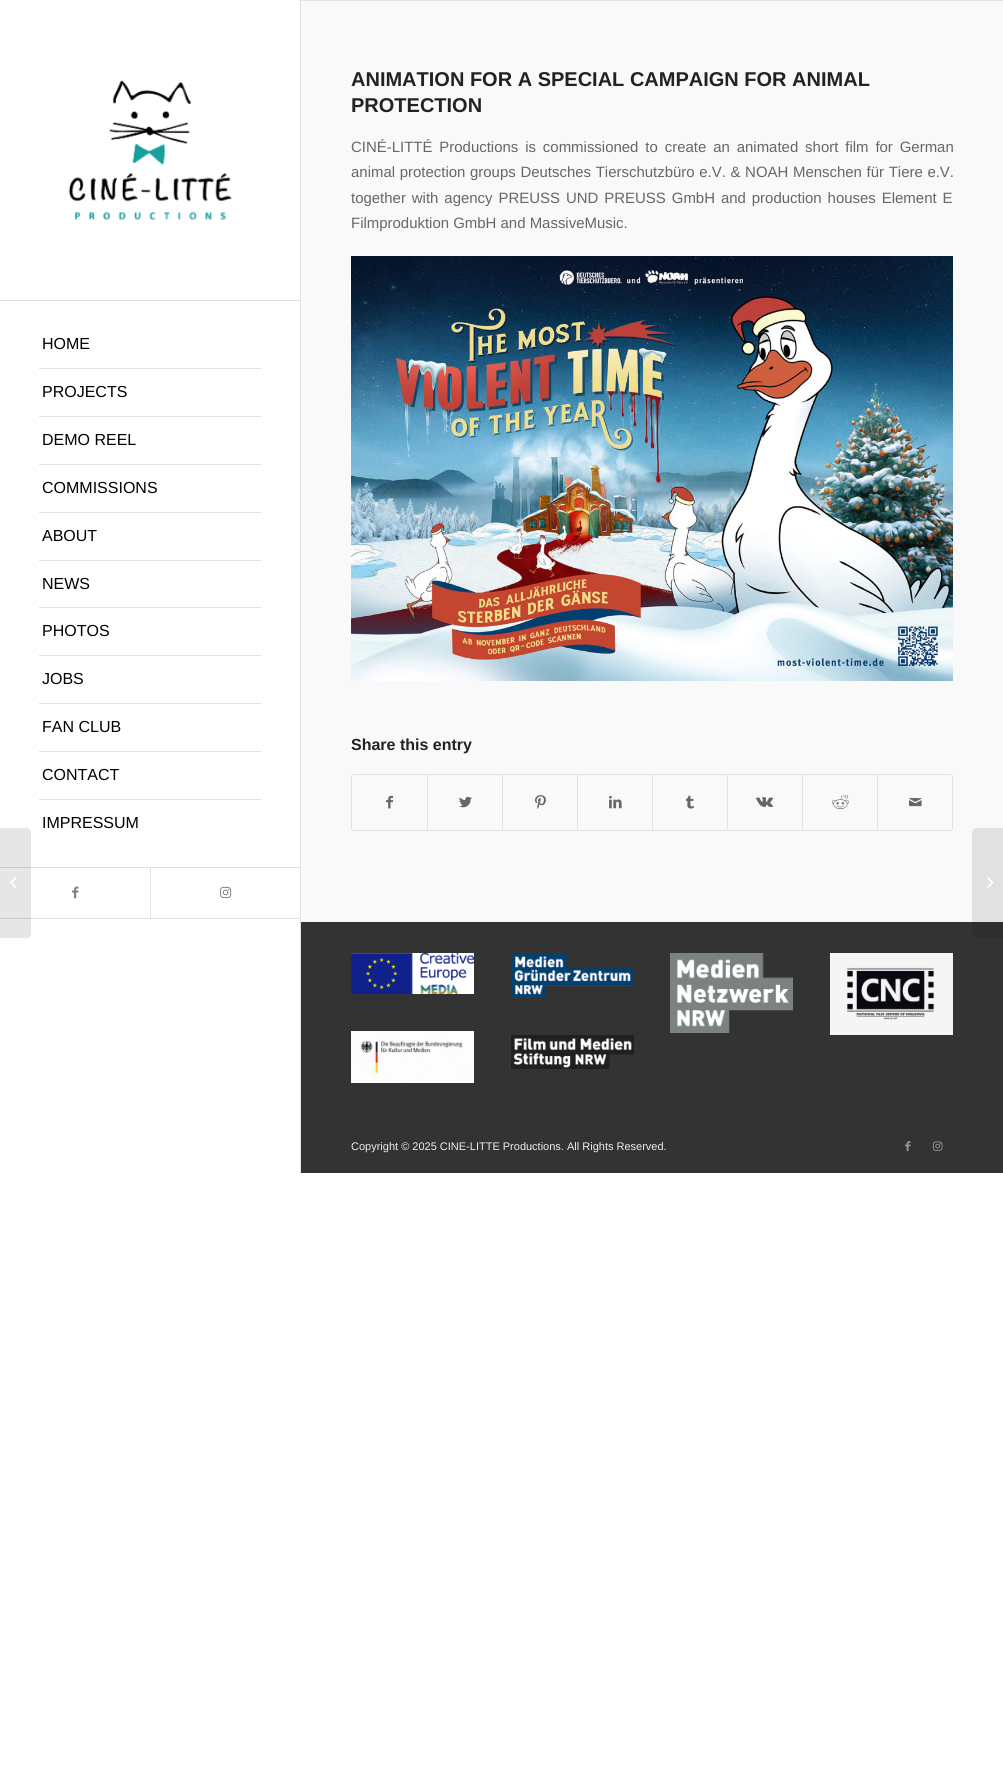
import math
import cairo


def write_spaced(ctx, x, y, s, letter, word):
	ctx.move_to(x, y)
	for ch in s:
		ctx.show_text(ch)
		ctx.rel_move_to(letter + word * (ch == ' '), 0)

def round_path(ctx, x, y, w, h, r):
	ctx.new_sub_path()
	for i, (u, v) in enumerate([(x + w - r, y + h - r), (x + r, y + h - r), (x + r, y + r), (x + w - r, y + r)]):
		ctx.arc(u, v, r, i * math.pi / 2, (i + 1) * math.pi / 2)
	ctx.close_path()

def paste(ctx, path, x, y, w, h):
	ctx.save()
	ctx.set_source_surface(cairo.ImageSurface.create_from_png(path), x, y)
	ctx.rectangle(x, y, w, h)
	ctx.fill()
	ctx.restore()

def draw(ctx):
	ctx.set_source_rgb(1, 1, 1)
	ctx.paint()
	ctx.set_source_rgb(0.882, 0.882, 0.882)
	ctx.rectangle(0, 918, 300, 1)
	ctx.fill()
	ctx.rectangle(0, 300, 300, 1)
	ctx.fill()
	paste(ctx, 'media/1.png', 69, 80, 163, 141)
	ctx.rectangle(39, 368, 222, 1)
	ctx.fill()
	ctx.select_font_face('Liberation Sans')
	ctx.set_font_size(16)
	ctx.set_source_rgb(0, 0, 0)
	ctx.move_to(42, 349)
	ctx.show_text('HOME')
	ctx.set_source_rgb(0.882, 0.882, 0.882)
	ctx.rectangle(39, 416, 222, 1)
	ctx.fill()
	ctx.set_source_rgb(0, 0, 0)
	ctx.move_to(42, 397)
	ctx.show_text('PROJECTS')
	ctx.set_source_rgb(0.882, 0.882, 0.882)
	ctx.rectangle(39, 464, 222, 1)
	ctx.fill()
	ctx.set_source_rgb(0, 0, 0)
	ctx.move_to(42, 445)
	ctx.show_text('DEMO REEL')
	ctx.set_source_rgb(0.882, 0.882, 0.882)
	ctx.rectangle(39, 512, 222, 1)
	ctx.fill()
	ctx.set_source_rgb(0, 0, 0)
	ctx.move_to(42, 493)
	ctx.show_text('COMMISSIONS')
	ctx.set_source_rgb(0.882, 0.882, 0.882)
	ctx.rectangle(39, 560, 222, 1)
	ctx.fill()
	ctx.set_source_rgb(0, 0, 0)
	ctx.move_to(42, 541)
	ctx.show_text('ABOUT')
	ctx.set_source_rgb(0.882, 0.882, 0.882)
	ctx.rectangle(39, 607, 222, 1)
	ctx.fill()
	ctx.set_source_rgb(0, 0, 0)
	ctx.move_to(42, 589)
	ctx.show_text('NEWS')
	ctx.set_source_rgb(0.882, 0.882, 0.882)
	ctx.rectangle(39, 655, 222, 1)
	ctx.fill()
	ctx.set_source_rgb(0, 0, 0)
	ctx.move_to(42, 636)
	ctx.show_text('PHOTOS')
	ctx.set_source_rgb(0.882, 0.882, 0.882)
	ctx.rectangle(39, 703, 222, 1)
	ctx.fill()
	ctx.set_source_rgb(0, 0, 0)
	ctx.move_to(42, 684)
	ctx.show_text('JOBS')
	ctx.set_source_rgb(0.882, 0.882, 0.882)
	ctx.rectangle(39, 751, 222, 1)
	ctx.fill()
	ctx.set_source_rgb(0, 0, 0)
	ctx.move_to(42, 732)
	ctx.show_text('FAN CLUB')
	ctx.set_source_rgb(0.882, 0.882, 0.882)
	ctx.rectangle(39, 799, 222, 1)
	ctx.fill()
	ctx.set_source_rgb(0, 0, 0)
	ctx.move_to(42, 780)
	ctx.show_text('CONTACT')
	ctx.move_to(42, 828)
	ctx.show_text('IMPRESSUM')
	ctx.set_source_rgb(0.882, 0.882, 0.882)
	ctx.rectangle(0, 867, 300, 1)
	ctx.fill()
	paste(ctx, 'media/2.png', 72, 886, 7, 13)
	ctx.rectangle(150, 868, 1, 50)
	ctx.fill()
	paste(ctx, 'media/3.png', 220, 886, 12, 12)
	ctx.rectangle(300, 0, 1, 1173)
	ctx.fill()
	ctx.set_source_rgb(0.973, 0.973, 0.973)
	ctx.rectangle(301, 1, 702, 921)
	ctx.fill()
	ctx.set_source_rgb(0.882, 0.882, 0.882)
	ctx.rectangle(301, 0, 702, 1)
	ctx.fill()
	ctx.select_font_face('Liberation Sans', cairo.FONT_SLANT_NORMAL, cairo.FONT_WEIGHT_BOLD)
	ctx.set_font_size(20)
	ctx.set_source_rgb(0.133, 0.133, 0.133)
	ctx.move_to(351, 86)
	ctx.show_text('ANIMATION FOR A SPECIAL CAMPAIGN FOR ANIMAL')
	ctx.move_to(351, 112)
	ctx.show_text('PROTECTION')
	ctx.select_font_face('Liberation Sans')
	ctx.set_font_size(14.95)
	ctx.set_source_rgb(0.4, 0.4, 0.4)
	write_spaced(ctx, 351, 152, 'CINÉ-LITTÉ Productions is commissioned to create an animated short film for German', 0, 2.75)
	write_spaced(ctx, 351, 177, 'animal protection groups Deutsches Tierschutzbüro e.V. & NOAH Menschen für Tiere e.V.', 0, 0.5)
	write_spaced(ctx, 351, 203, 'together with agency PREUSS UND PREUSS GmbH and production houses Element E', 0, 1.8)
	ctx.move_to(351, 228)
	ctx.show_text('Filmproduktion GmbH and MassiveMusic.')
	paste(ctx, 'media/4.png', 351, 256, 602, 425)
	ctx.select_font_face('Liberation Sans', cairo.FONT_SLANT_NORMAL, cairo.FONT_WEIGHT_BOLD)
	ctx.set_font_size(16)
	ctx.set_source_rgb(0.133, 0.133, 0.133)
	ctx.move_to(351, 750)
	ctx.show_text('Share this entry')
	round_path(ctx, 351.5, 774.5, 601, 56, 2.5)
	ctx.set_source_rgb(0.882, 0.882, 0.882)
	ctx.set_line_width(1)
	ctx.stroke()
	paste(ctx, 'media/5.png', 386, 795, 7, 14)
	ctx.rectangle(427, 775, 1, 55)
	ctx.fill()
	paste(ctx, 'media/6.png', 459, 796, 13, 12)
	ctx.rectangle(502, 775, 1, 55)
	ctx.fill()
	paste(ctx, 'media/7.png', 535, 795, 11, 14)
	ctx.rectangle(577, 775, 1, 55)
	ctx.fill()
	paste(ctx, 'media/8.png', 609, 795, 13, 14)
	ctx.rectangle(652, 775, 1, 55)
	ctx.fill()
	paste(ctx, 'media/9.png', 686, 795, 8, 14)
	ctx.rectangle(727, 775, 1, 55)
	ctx.fill()
	paste(ctx, 'media/10.png', 756, 797, 17, 10)
	ctx.rectangle(802, 775, 1, 55)
	ctx.fill()
	paste(ctx, 'media/11.png', 832, 795, 17, 15)
	ctx.rectangle(877, 775, 1, 55)
	ctx.fill()
	paste(ctx, 'media/12.png', 909, 798, 13, 9)
	ctx.set_source_rgb(0.2, 0.2, 0.2)
	ctx.rectangle(301, 922, 702, 251)
	ctx.fill()
	paste(ctx, 'media/13.png', 351, 953, 123, 41)
	paste(ctx, 'media/14.png', 351, 1031, 123, 52)
	paste(ctx, 'media/15.png', 511, 953, 123, 45)
	paste(ctx, 'media/16.png', 511, 1035, 123, 34)
	paste(ctx, 'media/17.png', 670, 953, 123, 80)
	paste(ctx, 'media/18.png', 830, 953, 123, 82)
	ctx.select_font_face('Liberation Sans')
	ctx.set_font_size(11)
	ctx.set_source_rgb(0.933, 0.933, 0.933)
	ctx.move_to(351, 1150)
	ctx.show_text('Copyright © 2025 CINE-LITTE Productions. All Rights Reserved.')
	paste(ctx, 'media/19.png', 905, 1141, 6, 11)
	paste(ctx, 'media/20.png', 933, 1141, 10, 10)
	ctx.set_source_rgba(0, 0, 0, 0.1)
	ctx.new_path()
	ctx.move_to(0, 828)
	ctx.line_to(27, 828)
	ctx.curve_to(29, 828, 31, 830, 31, 832)
	ctx.line_to(31, 934)
	ctx.curve_to(31, 936, 29, 938, 27, 938)
	ctx.line_to(0, 938)
	ctx.close_path()
	ctx.fill()
	paste(ctx, 'media/21.png', 10, 877, 7, 11)
	ctx.new_path()
	ctx.move_to(976, 828)
	ctx.line_to(1003, 828)
	ctx.line_to(1003, 938)
	ctx.line_to(976, 938)
	ctx.curve_to(974, 938, 972, 936, 972, 934)
	ctx.line_to(972, 832)
	ctx.curve_to(972, 830, 974, 828, 976, 828)
	ctx.close_path()
	ctx.fill()
	paste(ctx, 'media/22.png', 987, 877, 7, 11)


surface = cairo.ImageSurface(cairo.FORMAT_RGB24, 1003, 1766)
ctx = cairo.Context(surface)
options = cairo.FontOptions()
options.set_hint_metrics(cairo.HINT_METRICS_OFF)
options.set_hint_style(cairo.HINT_STYLE_NONE)
ctx.set_font_options(options)
ctx.set_miter_limit(4)
draw(ctx)
surface.write_to_png('image.png')
